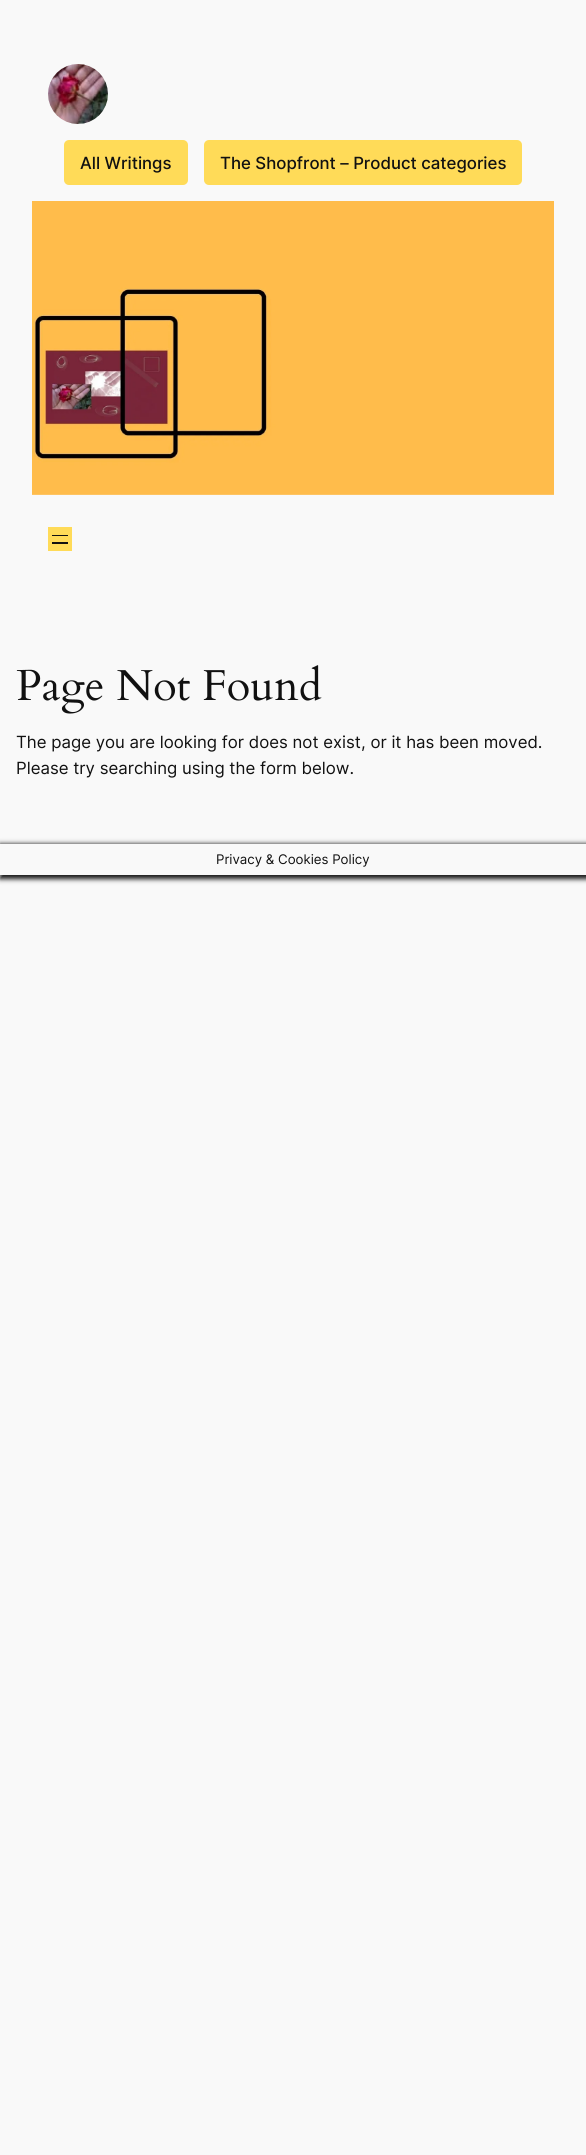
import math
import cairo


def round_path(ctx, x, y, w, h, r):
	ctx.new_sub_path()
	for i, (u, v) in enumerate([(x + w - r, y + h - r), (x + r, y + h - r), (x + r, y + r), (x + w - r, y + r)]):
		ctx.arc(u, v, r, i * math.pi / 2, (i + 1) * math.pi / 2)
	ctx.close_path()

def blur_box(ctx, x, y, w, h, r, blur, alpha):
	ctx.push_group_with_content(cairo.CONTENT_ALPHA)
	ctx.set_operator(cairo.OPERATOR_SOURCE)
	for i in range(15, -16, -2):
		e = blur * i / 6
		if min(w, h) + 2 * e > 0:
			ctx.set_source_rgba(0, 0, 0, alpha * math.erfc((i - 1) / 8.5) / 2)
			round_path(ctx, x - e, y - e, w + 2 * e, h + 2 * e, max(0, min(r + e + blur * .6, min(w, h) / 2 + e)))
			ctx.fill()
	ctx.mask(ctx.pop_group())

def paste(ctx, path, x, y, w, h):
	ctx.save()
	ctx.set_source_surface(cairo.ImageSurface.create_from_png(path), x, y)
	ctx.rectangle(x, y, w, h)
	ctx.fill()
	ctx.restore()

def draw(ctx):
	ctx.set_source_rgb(0.976, 0.976, 0.976)
	ctx.paint()
	paste(ctx, 'media/1.png', 48, 64, 60, 60)
	ctx.set_source_rgb(1, 0.859, 0.345)
	round_path(ctx, 64, 140, 124, 45, 5)
	ctx.fill()
	ctx.select_font_face('Inter Medium')
	ctx.set_font_size(16.8)
	ctx.set_source_rgb(0.067, 0.067, 0.067)
	ctx.move_to(80, 169)
	ctx.show_text('All Writings')
	ctx.set_source_rgb(1, 0.859, 0.345)
	round_path(ctx, 204, 140, 318, 45, 5)
	ctx.fill()
	ctx.set_source_rgb(0.067, 0.067, 0.067)
	ctx.move_to(220, 169)
	ctx.show_text('The Shopfront – Product categories')
	paste(ctx, 'media/2.png', 32, 201, 522, 294)
	ctx.set_source_rgb(1, 0.859, 0.345)
	ctx.rectangle(48, 527, 24, 24)
	ctx.fill()
	ctx.set_source_rgb(0.067, 0.067, 0.067)
	ctx.rectangle(52, 535, 16, 1)
	ctx.rectangle(52, 542, 16, 2)
	ctx.fill()
	paste(ctx, 'media/3.png', 16, 665, 306, 49)
	ctx.select_font_face('Inter')
	ctx.move_to(16, 748)
	ctx.show_text('The page you are looking for does not exist, or it has been moved.')
	ctx.move_to(16, 774)
	ctx.show_text('Please try searching using the form below.')
	ctx.save()
	ctx.set_fill_rule(cairo.FILL_RULE_EVEN_ODD)
	ctx.new_path()
	ctx.move_to(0, 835)
	ctx.line_to(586, 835)
	ctx.line_to(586, 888)
	ctx.line_to(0, 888)
	ctx.close_path()
	ctx.move_to(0, 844)
	ctx.line_to(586, 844)
	ctx.line_to(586, 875)
	ctx.line_to(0, 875)
	ctx.close_path()
	ctx.clip()
	ctx.set_source_rgb(0.086, 0.086, 0.086)
	blur_box(ctx, 0, 844, 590, 35, 0, 2.5, 1)
	ctx.restore()
	ctx.set_font_size(13.25)
	ctx.move_to(216, 864)
	ctx.show_text('Privacy & Cookies Policy')


surface = cairo.ImageSurface(cairo.FORMAT_RGB24, 586, 2155)
ctx = cairo.Context(surface)
options = cairo.FontOptions()
options.set_hint_metrics(cairo.HINT_METRICS_OFF)
options.set_hint_style(cairo.HINT_STYLE_NONE)
ctx.set_font_options(options)
ctx.set_miter_limit(4)
draw(ctx)
surface.write_to_png('image.png')
